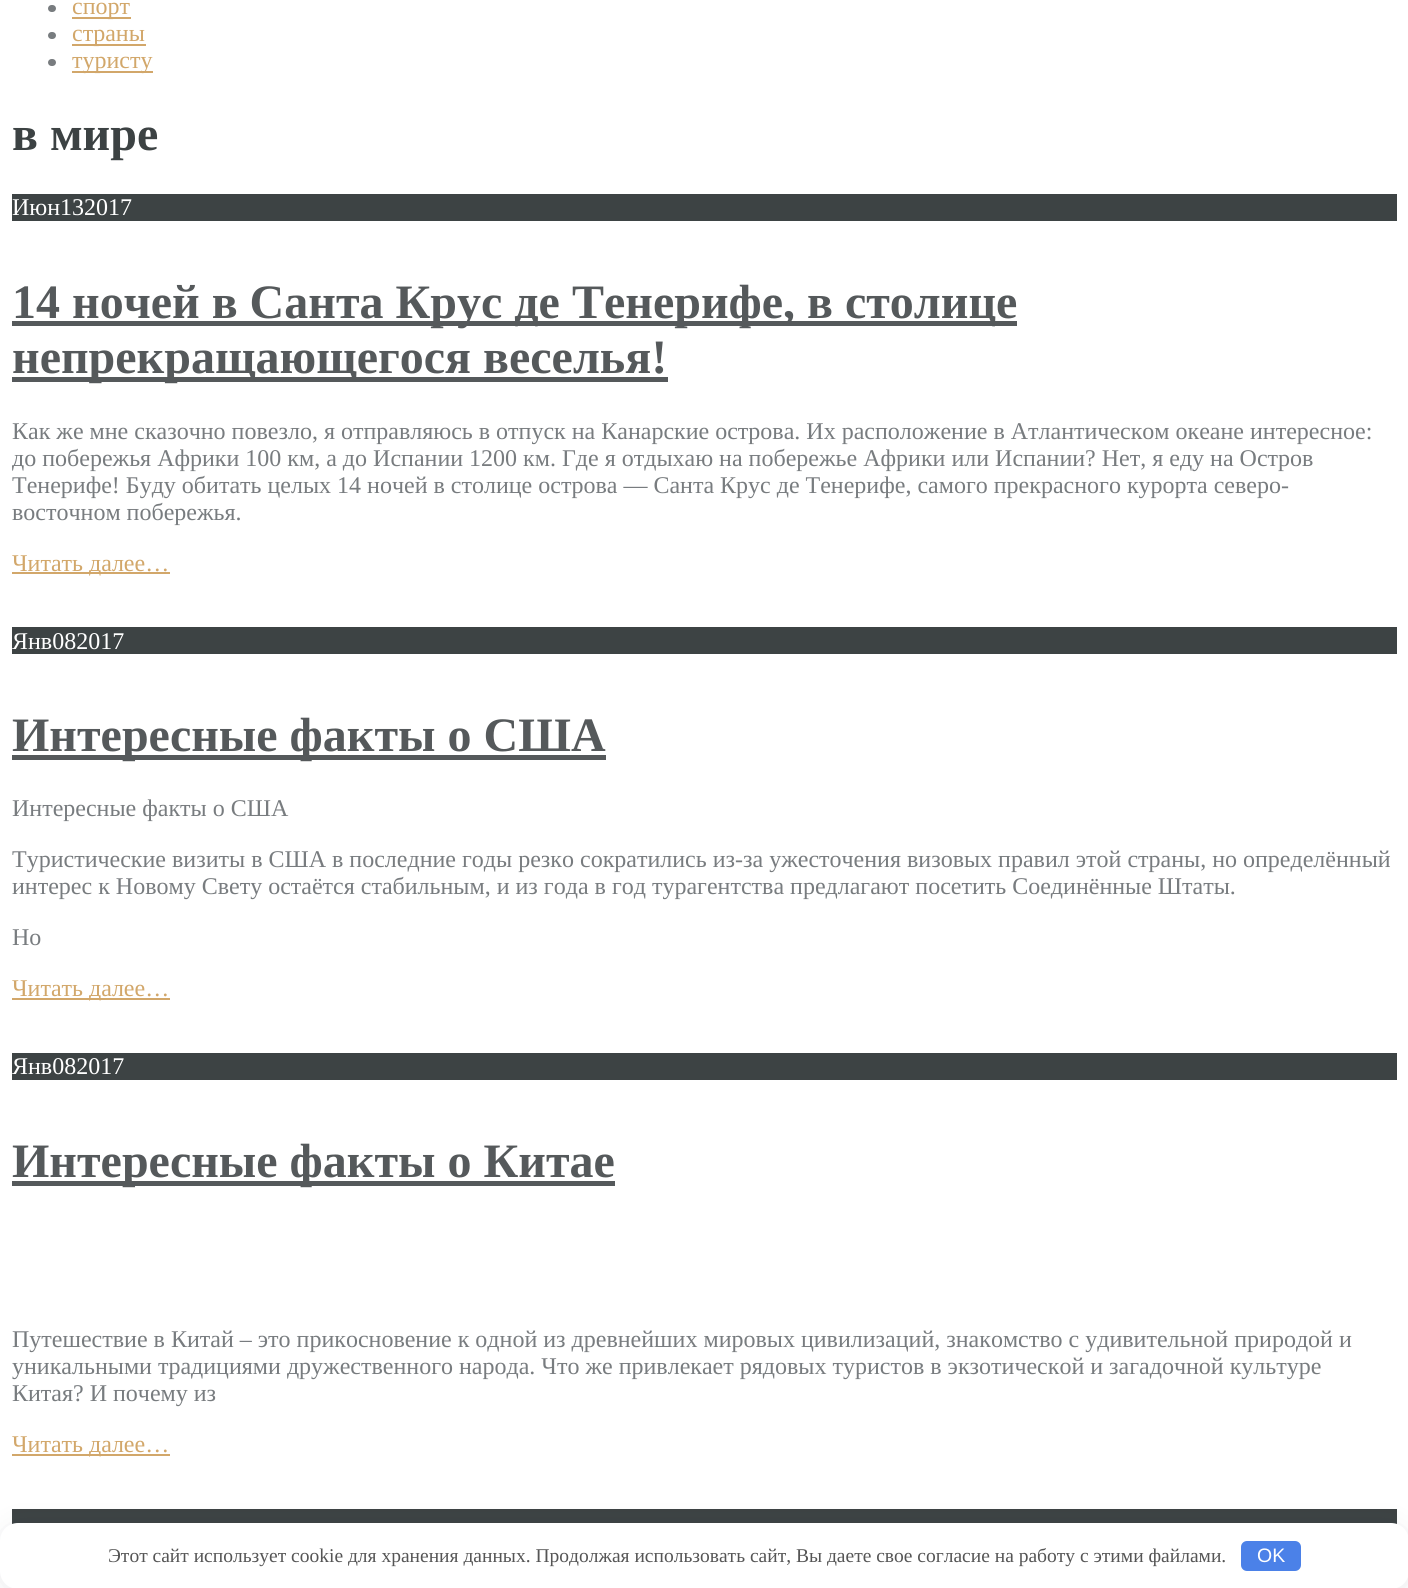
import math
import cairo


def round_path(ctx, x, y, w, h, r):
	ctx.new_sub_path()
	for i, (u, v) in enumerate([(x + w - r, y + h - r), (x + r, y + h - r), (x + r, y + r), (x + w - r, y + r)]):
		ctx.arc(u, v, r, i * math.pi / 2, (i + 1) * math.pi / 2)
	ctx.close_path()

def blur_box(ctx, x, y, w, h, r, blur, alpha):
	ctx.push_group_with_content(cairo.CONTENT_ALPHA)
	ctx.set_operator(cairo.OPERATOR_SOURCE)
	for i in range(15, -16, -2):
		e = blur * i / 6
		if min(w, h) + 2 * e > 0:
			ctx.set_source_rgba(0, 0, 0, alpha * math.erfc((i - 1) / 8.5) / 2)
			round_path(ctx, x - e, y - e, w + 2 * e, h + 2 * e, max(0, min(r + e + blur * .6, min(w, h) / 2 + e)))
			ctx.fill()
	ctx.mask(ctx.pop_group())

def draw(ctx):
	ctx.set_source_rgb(1, 1, 1)
	ctx.paint()
	ctx.set_source_rgb(0.471, 0.486, 0.498)
	round_path(ctx, 48, 5, 8, 7, 3.5)
	ctx.fill()
	ctx.set_source_rgb(0.824, 0.655, 0.416)
	ctx.rectangle(72, 17, 59, 2)
	ctx.fill()
	ctx.select_font_face('Liberation Serif')
	ctx.set_font_size(24)
	ctx.move_to(72, 14)
	ctx.show_text('спорт')
	ctx.set_source_rgb(0.471, 0.486, 0.498)
	round_path(ctx, 48, 32, 8, 7, 3.5)
	ctx.fill()
	ctx.set_source_rgb(0.824, 0.655, 0.416)
	ctx.rectangle(72, 44, 74, 2)
	ctx.fill()
	ctx.move_to(72, 41)
	ctx.show_text('страны')
	ctx.set_source_rgb(0.471, 0.486, 0.498)
	round_path(ctx, 48, 59, 8, 7, 3.5)
	ctx.fill()
	ctx.set_source_rgb(0.824, 0.655, 0.416)
	ctx.rectangle(72, 71, 81, 2)
	ctx.fill()
	ctx.move_to(72, 68)
	ctx.show_text('туристу')
	ctx.select_font_face('Liberation Serif', cairo.FONT_SLANT_NORMAL, cairo.FONT_WEIGHT_BOLD)
	ctx.set_font_size(48)
	ctx.set_source_rgb(0.235, 0.259, 0.263)
	ctx.move_to(12, 150)
	ctx.show_text('в мире')
	ctx.set_source_rgb(0.239, 0.263, 0.267)
	ctx.rectangle(12, 194, 1385, 27)
	ctx.fill()
	ctx.select_font_face('Liberation Serif')
	ctx.set_font_size(24)
	ctx.set_source_rgb(1, 1, 1)
	ctx.move_to(12, 215)
	ctx.show_text('Июн132017')
	ctx.set_source_rgb(0.333, 0.349, 0.357)
	ctx.rectangle(12, 321, 1005, 5)
	ctx.fill()
	ctx.select_font_face('Liberation Serif', cairo.FONT_SLANT_NORMAL, cairo.FONT_WEIGHT_BOLD)
	ctx.set_font_size(48)
	ctx.move_to(12, 318)
	ctx.show_text('14 ночей в Санта Крус де Тенерифе, в столице')
	ctx.rectangle(12, 377, 656, 5)
	ctx.fill()
	ctx.move_to(12, 373)
	ctx.show_text('непрекращающегося веселья!')
	ctx.select_font_face('Liberation Serif')
	ctx.set_font_size(24)
	ctx.set_source_rgb(0.471, 0.486, 0.498)
	for x, y, s in [
		(12, 439, 'Как же мне сказочно повезло, я отправляюсь в отпуск на Канарские острова. Их расположение в Атлантическом океане интересное:'),
		(12, 466, 'до побережья Африки 100 км, а до Испании 1200 км. Где я отдыхаю на побережье Африки или Испании? Нет, я еду на Остров'),
		(12, 493, 'Тенерифе! Буду обитать целых 14 ночей в столице острова — Санта Крус де Тенерифе, самого прекрасного курорта северо-'),
		(12, 520, 'восточном побережья.'),
	]:
		ctx.move_to(x, y)
		ctx.show_text(s)
	ctx.set_source_rgb(0.824, 0.655, 0.416)
	ctx.rectangle(12, 572, 158, 2)
	ctx.fill()
	ctx.move_to(12, 571)
	ctx.show_text('Читать далее…')
	ctx.set_source_rgb(0.239, 0.263, 0.267)
	ctx.rectangle(12, 627, 1385, 27)
	ctx.fill()
	ctx.set_source_rgb(1, 1, 1)
	ctx.move_to(12, 649)
	ctx.show_text('Янв082017')
	ctx.set_source_rgb(0.333, 0.349, 0.357)
	ctx.rectangle(12, 755, 594, 5)
	ctx.fill()
	ctx.select_font_face('Liberation Serif', cairo.FONT_SLANT_NORMAL, cairo.FONT_WEIGHT_BOLD)
	ctx.set_font_size(48)
	ctx.move_to(12, 751)
	ctx.show_text('Интересные факты о США')
	ctx.select_font_face('Liberation Serif')
	ctx.set_font_size(24)
	ctx.set_source_rgb(0.471, 0.486, 0.498)
	for x, y, s in [
		(12, 816, 'Интересные факты о США'),
		(12, 867, 'Туристические визиты в США в последние годы резко сократились из-за ужесточения визовых правил этой страны, но определённый'),
		(12, 894, 'интерес к Новому Свету остаётся стабильным, и из года в год турагентства предлагают посетить Соединённые Штаты.'),
		(12, 945, 'Но'),
	]:
		ctx.move_to(x, y)
		ctx.show_text(s)
	ctx.set_source_rgb(0.824, 0.655, 0.416)
	ctx.rectangle(12, 998, 158, 2)
	ctx.fill()
	ctx.move_to(12, 996)
	ctx.show_text('Читать далее…')
	ctx.set_source_rgb(0.239, 0.263, 0.267)
	ctx.rectangle(12, 1053, 1385, 27)
	ctx.fill()
	ctx.set_source_rgb(1, 1, 1)
	ctx.move_to(12, 1074)
	ctx.show_text('Янв082017')
	ctx.set_source_rgb(0.333, 0.349, 0.357)
	ctx.rectangle(12, 1181, 603, 5)
	ctx.fill()
	ctx.select_font_face('Liberation Serif', cairo.FONT_SLANT_NORMAL, cairo.FONT_WEIGHT_BOLD)
	ctx.set_font_size(48)
	ctx.move_to(12, 1177)
	ctx.show_text('Интересные факты о Китае')
	ctx.select_font_face('Liberation Serif')
	ctx.set_font_size(24)
	ctx.set_source_rgb(0.471, 0.486, 0.498)
	for x, y, s in [
		(12, 1347, 'Путешествие в Китай – это прикосновение к одной из древнейших мировых цивилизаций, знакомство с удивительной природой и'),
		(12, 1374, 'уникальными традициями дружественного народа. Что же привлекает рядовых туристов в экзотической и загадочной культуре'),
		(12, 1401, 'Китая? И почему из'),
	]:
		ctx.move_to(x, y)
		ctx.show_text(s)
	ctx.set_source_rgb(0.824, 0.655, 0.416)
	ctx.rectangle(12, 1454, 158, 2)
	ctx.fill()
	ctx.move_to(12, 1452)
	ctx.show_text('Читать далее…')
	ctx.set_source_rgb(0.239, 0.263, 0.267)
	ctx.rectangle(12, 1509, 1385, 15)
	ctx.fill()
	ctx.set_source_rgb(0.161, 0.173, 0.22)
	blur_box(ctx, 8, 1535, 1393, 51, 11, 15, 0.2)
	ctx.set_source_rgb(1, 1, 1)
	round_path(ctx, 0, 1523, 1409, 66, 18)
	ctx.fill()
	ctx.set_font_size(19.5)
	ctx.set_source_rgb(0.333, 0.333, 0.333)
	ctx.move_to(108, 1562)
	ctx.show_text('Этот сайт использует cookie для хранения данных. Продолжая использовать сайт, Вы даете свое согласие на работу с этими файлами.')
	ctx.set_source_rgb(0.294, 0.506, 0.91)
	round_path(ctx, 1241, 1541, 60, 30, 6)
	ctx.fill()
	ctx.select_font_face('Liberation Sans')
	ctx.set_source_rgb(1, 1, 1)
	ctx.move_to(1257, 1562)
	ctx.show_text('OK')


surface = cairo.ImageSurface(cairo.FORMAT_RGB24, 1408, 1588)
ctx = cairo.Context(surface)
options = cairo.FontOptions()
options.set_hint_metrics(cairo.HINT_METRICS_OFF)
options.set_hint_style(cairo.HINT_STYLE_NONE)
ctx.set_font_options(options)
ctx.set_miter_limit(4)
draw(ctx)
surface.write_to_png('image.png')
